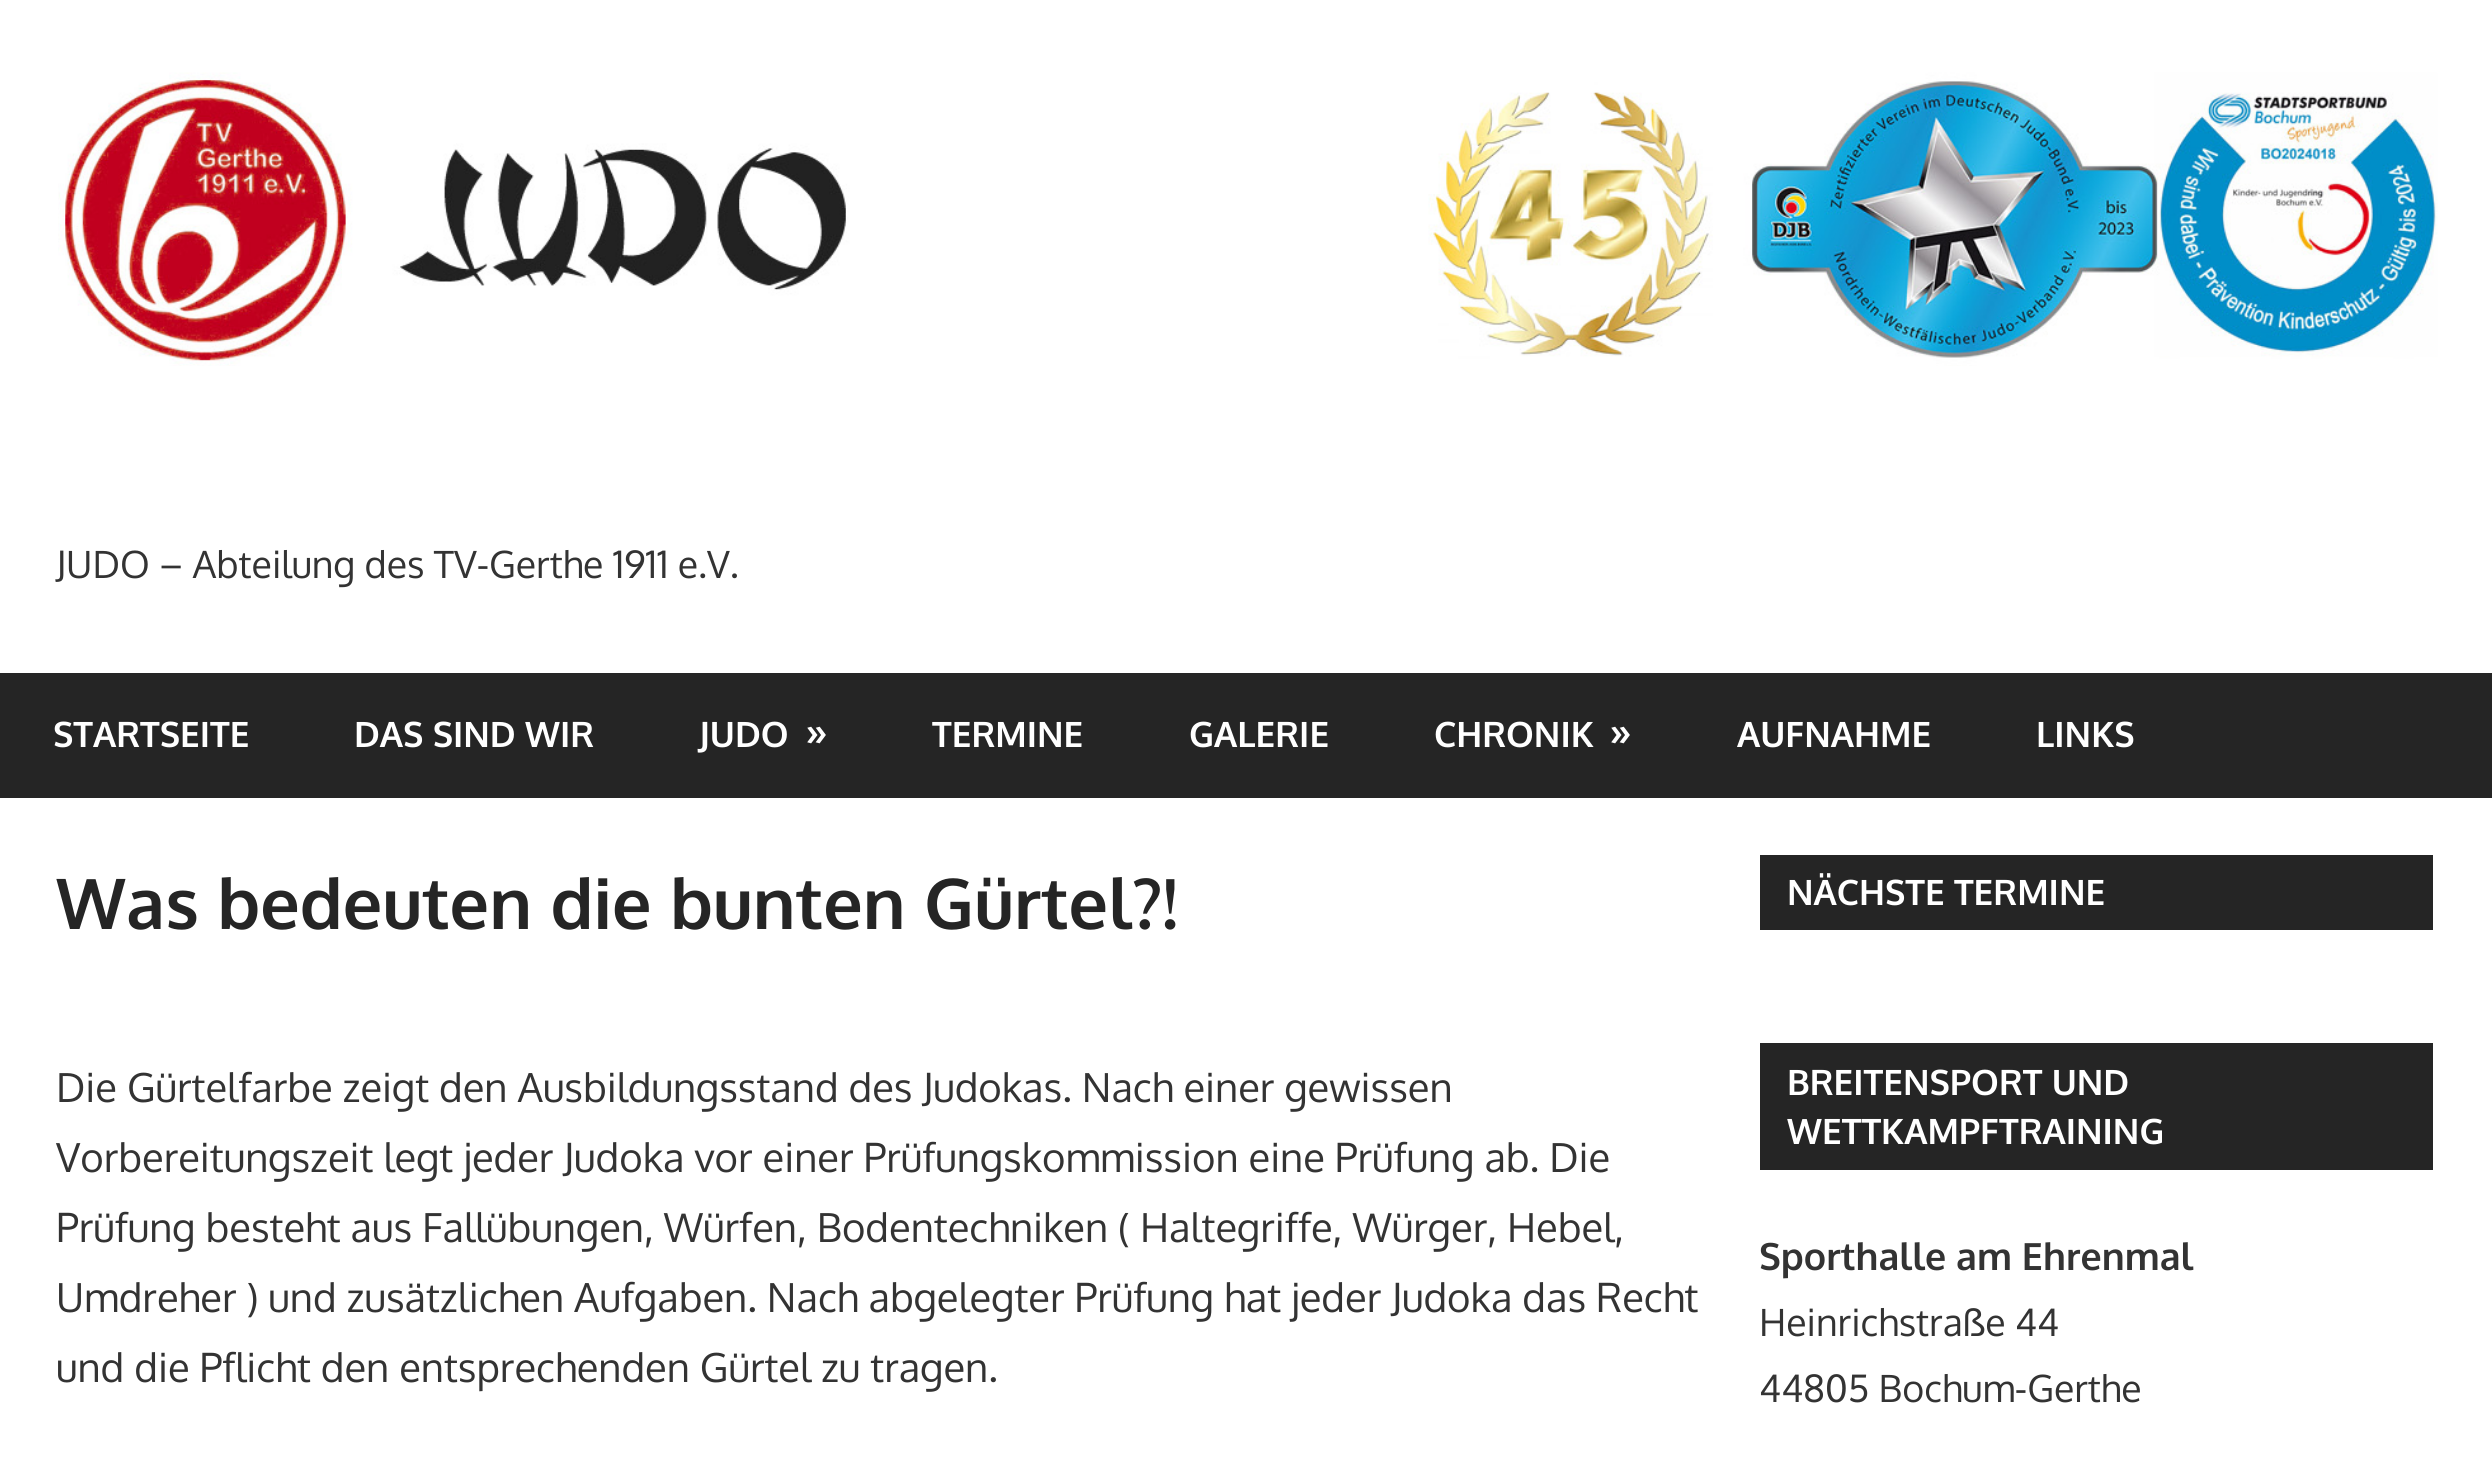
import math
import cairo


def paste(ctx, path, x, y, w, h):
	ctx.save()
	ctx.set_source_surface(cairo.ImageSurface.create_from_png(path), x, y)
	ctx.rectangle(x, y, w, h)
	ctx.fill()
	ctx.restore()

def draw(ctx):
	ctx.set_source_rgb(1, 1, 1)
	ctx.paint()
	paste(ctx, 'media/1.png', 58, 72, 2380, 294)
	ctx.select_font_face('Oxygen')
	ctx.set_font_size(37.5)
	ctx.set_source_rgb(0.2, 0.2, 0.2)
	ctx.move_to(56, 578)
	ctx.show_text('JUDO – Abteilung des TV-Gerthe 1911 e.V.')
	ctx.set_source_rgb(0.145, 0.145, 0.145)
	ctx.rectangle(0, 673, 2492, 125)
	ctx.fill()
	ctx.select_font_face('Oxygen', cairo.FONT_SLANT_NORMAL, cairo.FONT_WEIGHT_BOLD)
	ctx.set_font_size(35)
	ctx.set_source_rgb(1, 1, 1)
	for x, y, s in [
		(53, 747, 'STARTSEITE'),
		(354, 747, 'DAS SIND WIR'),
		(699, 747, 'JUDO'),
	]:
		ctx.move_to(x, y)
		ctx.show_text(s)
	ctx.set_font_size(40)
	ctx.move_to(805, 746)
	ctx.show_text('»')
	ctx.set_font_size(35)
	for x, y, s in [
		(932, 747, 'TERMINE'),
		(1189, 747, 'GALERIE'),
		(1434, 747, 'CHRONIK'),
	]:
		ctx.move_to(x, y)
		ctx.show_text(s)
	ctx.set_font_size(40)
	ctx.move_to(1609, 746)
	ctx.show_text('»')
	ctx.set_font_size(35)
	ctx.move_to(1737, 747)
	ctx.show_text('AUFNAHME')
	ctx.move_to(2036, 747)
	ctx.show_text('LINKS')
	ctx.set_font_size(70)
	ctx.set_source_rgb(0.145, 0.145, 0.145)
	ctx.move_to(56, 929)
	ctx.show_text('Was bedeuten die bunten Gürtel?!')
	ctx.select_font_face('Oxygen')
	ctx.set_font_size(40)
	ctx.set_source_rgb(0.2, 0.2, 0.2)
	for x, y, s in [
		(56, 1102, 'Die Gürtelfarbe zeigt den Ausbildungsstand des Judokas. Nach einer gewissen'),
		(56, 1172, 'Vorbereitungszeit legt jeder Judoka vor einer Prüfungskommission eine Prüfung ab. Die'),
		(56, 1242, 'Prüfung besteht aus Fallübungen, Würfen, Bodentechniken ( Haltegriffe, Würger, Hebel,'),
		(56, 1312, 'Umdreher ) und zusätzlichen Aufgaben. Nach abgelegter Prüfung hat jeder Judoka das Recht'),
		(56, 1382, 'und die Pflicht den entsprechenden Gürtel zu tragen.'),
	]:
		ctx.move_to(x, y)
		ctx.show_text(s)
	ctx.set_source_rgb(0.145, 0.145, 0.145)
	ctx.rectangle(1760, 855, 673, 75)
	ctx.fill()
	ctx.select_font_face('Oxygen', cairo.FONT_SLANT_NORMAL, cairo.FONT_WEIGHT_BOLD)
	ctx.set_font_size(35)
	ctx.set_source_rgb(1, 1, 1)
	ctx.move_to(1787, 905)
	ctx.show_text('NÄCHSTE TERMINE')
	ctx.set_source_rgb(0.145, 0.145, 0.145)
	ctx.rectangle(1760, 1043, 673, 127)
	ctx.fill()
	ctx.set_source_rgb(1, 1, 1)
	ctx.move_to(1787, 1095)
	ctx.show_text('BREITENSPORT UND')
	ctx.move_to(1787, 1144)
	ctx.show_text('WETTKAMPFTRAINING')
	ctx.set_font_size(37.5)
	ctx.set_source_rgb(0.2, 0.2, 0.2)
	ctx.move_to(1759, 1270)
	ctx.show_text('Sporthalle am Ehrenmal')
	ctx.select_font_face('Oxygen')
	ctx.move_to(1759, 1336)
	ctx.show_text('Heinrichstraße 44')
	ctx.move_to(1759, 1402)
	ctx.show_text('44805 Bochum-Gerthe')


surface = cairo.ImageSurface(cairo.FORMAT_RGB24, 2492, 1462)
ctx = cairo.Context(surface)
options = cairo.FontOptions()
options.set_hint_metrics(cairo.HINT_METRICS_OFF)
options.set_hint_style(cairo.HINT_STYLE_NONE)
ctx.set_font_options(options)
ctx.set_miter_limit(4)
draw(ctx)
surface.write_to_png('image.png')
